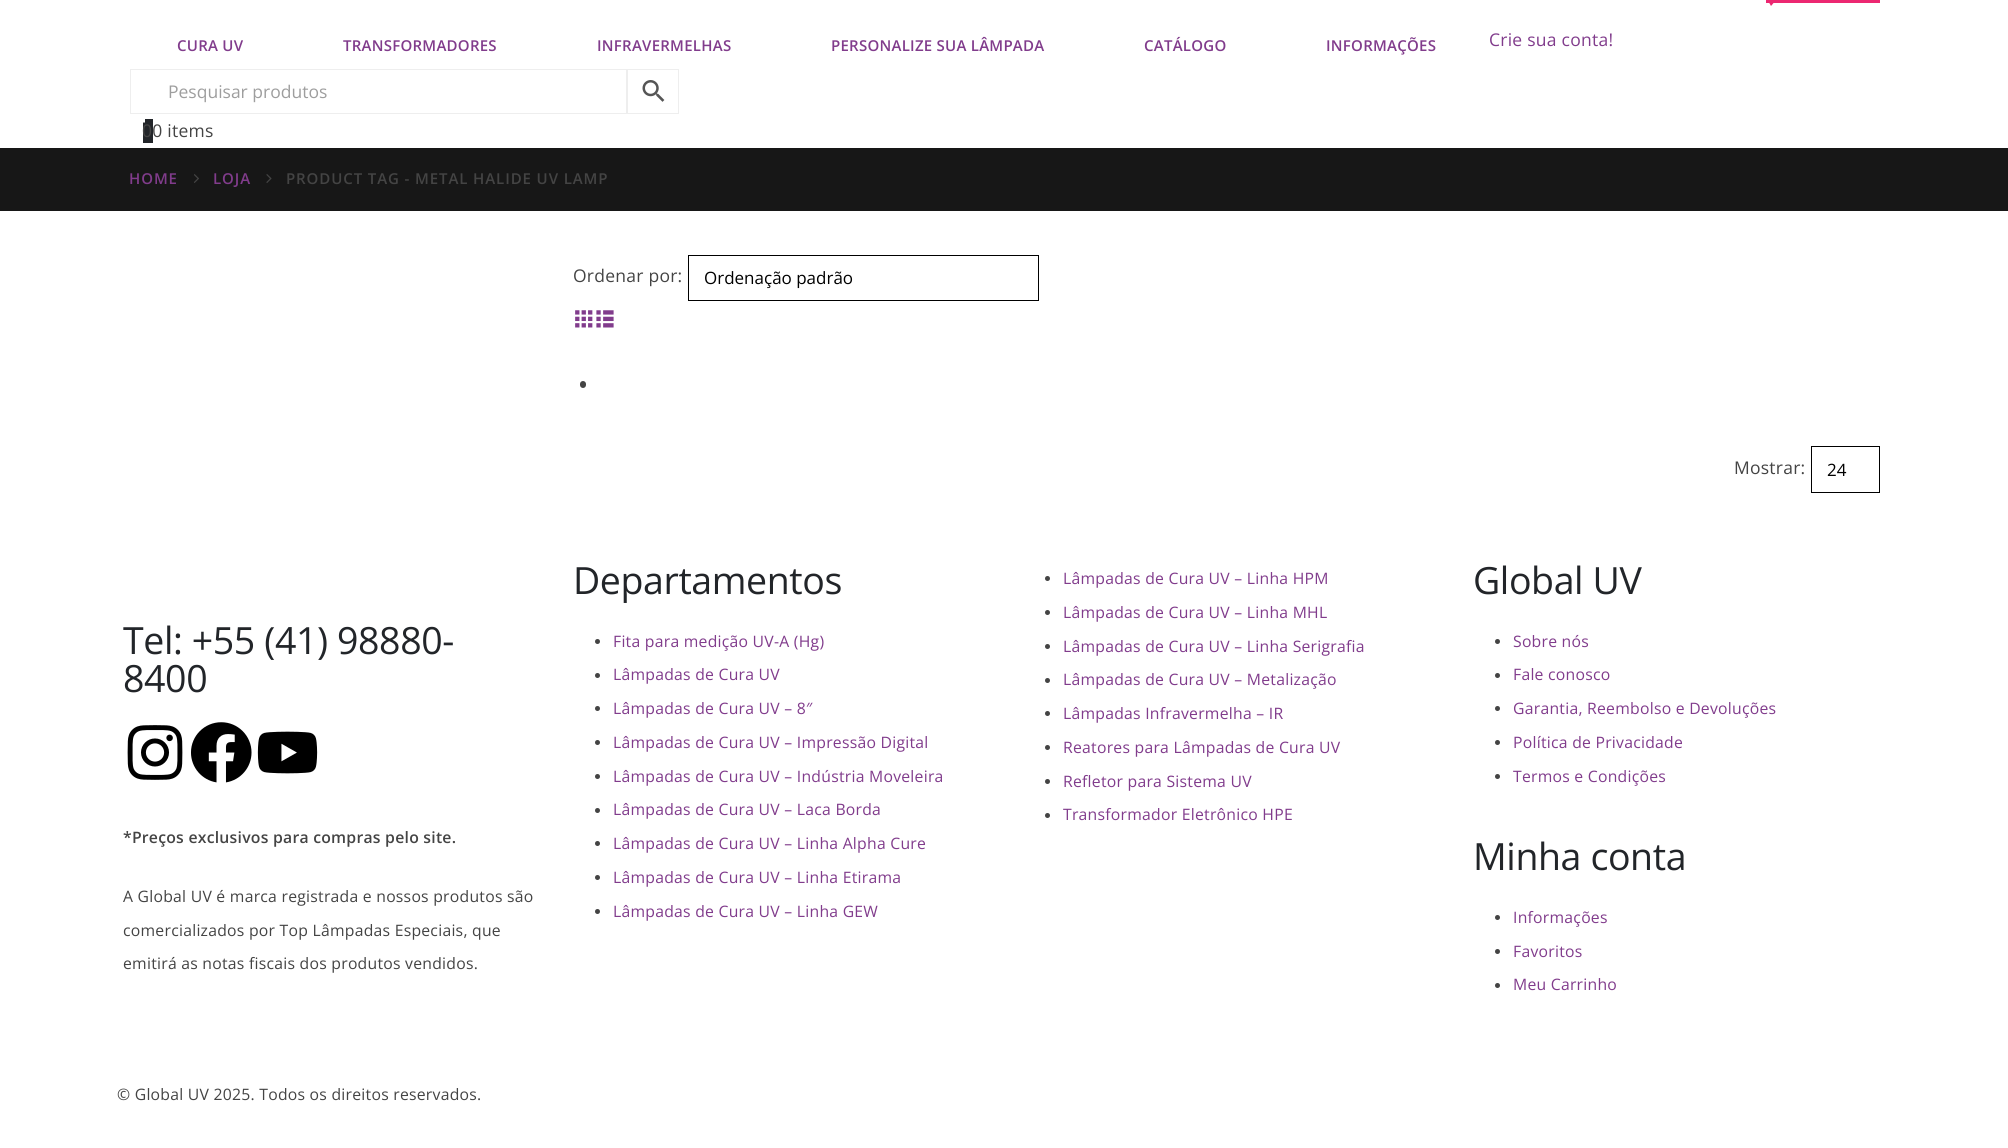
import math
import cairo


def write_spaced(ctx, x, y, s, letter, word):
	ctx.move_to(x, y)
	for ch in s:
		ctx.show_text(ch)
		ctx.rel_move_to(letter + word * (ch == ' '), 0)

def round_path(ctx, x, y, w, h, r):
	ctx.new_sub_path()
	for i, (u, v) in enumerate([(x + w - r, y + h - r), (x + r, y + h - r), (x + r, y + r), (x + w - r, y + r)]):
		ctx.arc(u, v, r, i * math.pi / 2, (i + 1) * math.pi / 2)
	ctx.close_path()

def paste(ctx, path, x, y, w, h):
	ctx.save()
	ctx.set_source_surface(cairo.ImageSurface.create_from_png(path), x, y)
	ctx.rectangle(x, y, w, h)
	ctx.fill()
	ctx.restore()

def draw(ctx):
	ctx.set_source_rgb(1, 1, 1)
	ctx.paint()
	ctx.select_font_face('Open Sans SemiBold')
	ctx.set_font_size(15)
	ctx.set_source_rgb(0.506, 0.235, 0.549)
	for x, y, s in [
		(177, 51, 'CURA UV'),
		(343, 51, 'TRANSFORMADORES'),
		(597, 51, 'INFRAVERMELHAS'),
		(831, 51, 'PERSONALIZE SUA LÂMPADA'),
		(1144, 51, 'CATÁLOGO'),
		(1326, 51, 'INFORMAÇÕES'),
	]:
		write_spaced(ctx, x, y, s, 0.25, 0)
	ctx.set_source_rgb(0.922, 0.153, 0.443)
	ctx.rectangle(1766, 0, 114, 3)
	ctx.fill()
	ctx.new_path()
	ctx.move_to(1769, 2.5)
	ctx.line_to(1774, 2.5)
	ctx.line_to(1771, 6)
	ctx.close_path()
	ctx.fill()
	ctx.select_font_face('Open Sans')
	ctx.set_font_size(17.5)
	ctx.set_source_rgb(0.506, 0.235, 0.549)
	write_spaced(ctx, 1489, 46, 'Crie sua conta!', 0.25, 0)
	ctx.rectangle(626.5, 69.5, 52, 44)
	ctx.set_source_rgb(0.933, 0.933, 0.933)
	ctx.set_line_width(1)
	ctx.stroke()
	ctx.set_source_rgb(0.133, 0.145, 0.161)
	ctx.rectangle(143, 119, 10, 24)
	ctx.fill()
	ctx.set_source_rgb(1, 1, 1)
	ctx.set_fill_rule(cairo.FILL_RULE_EVEN_ODD)
	ctx.new_path()
	ctx.move_to(135.5, 109)
	ctx.curve_to(141, 109, 145, 113, 145, 118)
	ctx.line_to(145, 122.5)
	ctx.line_to(126, 122.5)
	ctx.line_to(126, 118)
	ctx.curve_to(126, 113, 130.5, 109, 135.5, 109)
	ctx.close_path()
	ctx.move_to(135.5, 111)
	ctx.curve_to(142.5, 111, 142.5, 117.5, 142.5, 122.5)
	ctx.line_to(129, 122.5)
	ctx.curve_to(129, 117.5, 128.5, 111, 135.5, 111)
	ctx.close_path()
	ctx.fill()
	ctx.rectangle(130.5, 69.5, 497, 44)
	ctx.set_source_rgb(0.933, 0.933, 0.933)
	ctx.stroke()
	ctx.set_source_rgb(0.62, 0.62, 0.62)
	ctx.move_to(168, 98)
	ctx.show_text('Pesquisar produtos')
	paste(ctx, 'media/1.png', 642, 80, 23, 22)
	ctx.set_source_rgb(0.267, 0.267, 0.267)
	write_spaced(ctx, 142, 137, '00 items', 0.25, 0)
	ctx.set_source_rgb(0.09, 0.09, 0.09)
	ctx.rectangle(0, 148, 2008, 63)
	ctx.fill()
	ctx.select_font_face('Open Sans SemiBold')
	ctx.set_font_size(15)
	ctx.set_source_rgb(0.506, 0.235, 0.549)
	write_spaced(ctx, 129, 184, 'HOME', 0.9, 0)
	paste(ctx, 'media/2.png', 194, 174, 5, 9)
	write_spaced(ctx, 213, 184, 'LOJA', 0.9, 0)
	paste(ctx, 'media/3.png', 266, 174, 6, 9)
	ctx.set_source_rgb(0.267, 0.267, 0.267)
	write_spaced(ctx, 286, 184, 'PRODUCT TAG - METAL HALIDE UV LAMP', 0.9, 0)
	ctx.select_font_face('Open Sans')
	ctx.set_font_size(17.5)
	write_spaced(ctx, 573, 282, 'Ordenar por:', 0.25, 0)
	ctx.rectangle(688.5, 255.5, 350, 45)
	ctx.set_source_rgb(0, 0, 0)
	ctx.stroke()
	ctx.set_font_size(17)
	ctx.move_to(704, 284)
	ctx.show_text('Ordenação padrão')
	paste(ctx, 'media/4.png', 575, 310, 18, 18)
	paste(ctx, 'media/5.png', 596, 310, 18, 18)
	ctx.set_source_rgb(0.267, 0.267, 0.267)
	round_path(ctx, 580, 381, 6, 7, 3)
	ctx.fill()
	ctx.set_font_size(17.5)
	write_spaced(ctx, 1734, 474, 'Mostrar:', 0.25, 0)
	ctx.rectangle(1811.5, 446.5, 68, 46)
	ctx.set_source_rgb(0, 0, 0)
	ctx.stroke()
	ctx.set_font_size(17)
	ctx.move_to(1827, 476)
	ctx.show_text('24')
	ctx.set_font_size(37.5)
	ctx.set_source_rgb(0.133, 0.145, 0.161)
	write_spaced(ctx, 123, 654, 'Tel: +55 (41) 98880-', -0.4, 0)
	write_spaced(ctx, 123, 692, '8400', -0.4, 0)
	paste(ctx, 'media/6.png', 127, 725, 56, 55)
	paste(ctx, 'media/7.png', 191, 722, 61, 61)
	paste(ctx, 'media/8.png', 257, 731, 61, 43)
	ctx.select_font_face('Open Sans SemiBold')
	ctx.set_font_size(15.75)
	ctx.set_source_rgb(0.267, 0.267, 0.267)
	write_spaced(ctx, 123, 843, '*Preços exclusivos para compras pelo site.', 0.25, 0)
	ctx.select_font_face('Open Sans')
	for x, y, s in [
		(123, 902, 'A Global UV é marca registrada e nossos produtos são'),
		(123, 936, 'comercializados por Top Lâmpadas Especiais, que'),
		(123, 969, 'emitirá as notas fiscais dos produtos vendidos.'),
	]:
		write_spaced(ctx, x, y, s, 0.25, 0)
	ctx.set_font_size(37.5)
	ctx.set_source_rgb(0.133, 0.145, 0.161)
	write_spaced(ctx, 573, 594, 'Departamentos', -0.4, 0)
	ctx.set_source_rgb(0.267, 0.267, 0.267)
	ctx.new_path()
	ctx.arc(597.5, 641.5, 2.5, 0, 2 * math.pi)
	ctx.fill()
	ctx.set_font_size(15.75)
	ctx.set_source_rgb(0.506, 0.235, 0.549)
	write_spaced(ctx, 613, 647, 'Fita para medição UV-A (Hg)', 0.25, 0)
	ctx.set_source_rgb(0.267, 0.267, 0.267)
	ctx.new_path()
	ctx.arc(597.5, 675.5, 2.5, 0, 2 * math.pi)
	ctx.fill()
	ctx.set_source_rgb(0.506, 0.235, 0.549)
	write_spaced(ctx, 613, 680, 'Lâmpadas de Cura UV', 0.25, 0)
	ctx.set_source_rgb(0.267, 0.267, 0.267)
	ctx.new_path()
	ctx.arc(597.5, 708.5, 2.5, 0, 2 * math.pi)
	ctx.fill()
	ctx.set_source_rgb(0.506, 0.235, 0.549)
	write_spaced(ctx, 613, 714, 'Lâmpadas de Cura UV – 8″', 0.25, 0)
	ctx.set_source_rgb(0.267, 0.267, 0.267)
	ctx.new_path()
	ctx.arc(597.5, 742.5, 2.5, 0, 2 * math.pi)
	ctx.fill()
	ctx.set_source_rgb(0.506, 0.235, 0.549)
	write_spaced(ctx, 613, 748, 'Lâmpadas de Cura UV – Impressão Digital', 0.25, 0)
	ctx.set_source_rgb(0.267, 0.267, 0.267)
	ctx.new_path()
	ctx.arc(597.5, 776.5, 2.5, 0, 2 * math.pi)
	ctx.fill()
	ctx.set_source_rgb(0.506, 0.235, 0.549)
	write_spaced(ctx, 613, 782, 'Lâmpadas de Cura UV – Indústria Moveleira', 0.25, 0)
	ctx.set_source_rgb(0.267, 0.267, 0.267)
	ctx.new_path()
	ctx.arc(597.5, 810.5, 2.5, 0, 2 * math.pi)
	ctx.fill()
	ctx.set_source_rgb(0.506, 0.235, 0.549)
	write_spaced(ctx, 613, 815, 'Lâmpadas de Cura UV – Laca Borda', 0.25, 0)
	ctx.set_source_rgb(0.267, 0.267, 0.267)
	ctx.new_path()
	ctx.arc(597.5, 843.5, 2.5, 0, 2 * math.pi)
	ctx.fill()
	ctx.set_source_rgb(0.506, 0.235, 0.549)
	write_spaced(ctx, 613, 849, 'Lâmpadas de Cura UV – Linha Alpha Cure', 0.25, 0)
	ctx.set_source_rgb(0.267, 0.267, 0.267)
	ctx.new_path()
	ctx.arc(597.5, 877.5, 2.5, 0, 2 * math.pi)
	ctx.fill()
	ctx.set_source_rgb(0.506, 0.235, 0.549)
	write_spaced(ctx, 613, 883, 'Lâmpadas de Cura UV – Linha Etirama', 0.25, 0)
	ctx.set_source_rgb(0.267, 0.267, 0.267)
	ctx.new_path()
	ctx.arc(597.5, 911.5, 2.5, 0, 2 * math.pi)
	ctx.fill()
	ctx.set_source_rgb(0.506, 0.235, 0.549)
	write_spaced(ctx, 613, 917, 'Lâmpadas de Cura UV – Linha GEW', 0.25, 0)
	ctx.set_source_rgb(0.267, 0.267, 0.267)
	ctx.new_path()
	ctx.arc(1047.5, 578.5, 2.5, 0, 2 * math.pi)
	ctx.fill()
	ctx.set_source_rgb(0.506, 0.235, 0.549)
	write_spaced(ctx, 1063, 584, 'Lâmpadas de Cura UV – Linha HPM', 0.25, 0)
	ctx.set_source_rgb(0.267, 0.267, 0.267)
	ctx.new_path()
	ctx.arc(1047.5, 612.5, 2.5, 0, 2 * math.pi)
	ctx.fill()
	ctx.set_source_rgb(0.506, 0.235, 0.549)
	write_spaced(ctx, 1063, 618, 'Lâmpadas de Cura UV – Linha MHL', 0.25, 0)
	ctx.set_source_rgb(0.267, 0.267, 0.267)
	ctx.new_path()
	ctx.arc(1047.5, 646.5, 2.5, 0, 2 * math.pi)
	ctx.fill()
	ctx.set_source_rgb(0.506, 0.235, 0.549)
	write_spaced(ctx, 1063, 652, 'Lâmpadas de Cura UV – Linha Serigrafia', 0.25, 0)
	ctx.set_source_rgb(0.267, 0.267, 0.267)
	ctx.new_path()
	ctx.arc(1047.5, 680.5, 2.5, 0, 2 * math.pi)
	ctx.fill()
	ctx.set_source_rgb(0.506, 0.235, 0.549)
	write_spaced(ctx, 1063, 685, 'Lâmpadas de Cura UV – Metalização', 0.25, 0)
	ctx.set_source_rgb(0.267, 0.267, 0.267)
	ctx.new_path()
	ctx.arc(1047.5, 713.5, 2.5, 0, 2 * math.pi)
	ctx.fill()
	ctx.set_source_rgb(0.506, 0.235, 0.549)
	write_spaced(ctx, 1063, 719, 'Lâmpadas Infravermelha – IR', 0.25, 0)
	ctx.set_source_rgb(0.267, 0.267, 0.267)
	ctx.new_path()
	ctx.arc(1047.5, 747.5, 2.5, 0, 2 * math.pi)
	ctx.fill()
	ctx.set_source_rgb(0.506, 0.235, 0.549)
	write_spaced(ctx, 1063, 753, 'Reatores para Lâmpadas de Cura UV', 0.25, 0)
	ctx.set_source_rgb(0.267, 0.267, 0.267)
	ctx.new_path()
	ctx.arc(1047.5, 781.5, 2.5, 0, 2 * math.pi)
	ctx.fill()
	ctx.set_source_rgb(0.506, 0.235, 0.549)
	write_spaced(ctx, 1063, 787, 'Refletor para Sistema UV', 0.25, 0)
	ctx.set_source_rgb(0.267, 0.267, 0.267)
	ctx.new_path()
	ctx.arc(1047.5, 815.5, 2.5, 0, 2 * math.pi)
	ctx.fill()
	ctx.set_source_rgb(0.506, 0.235, 0.549)
	write_spaced(ctx, 1063, 820, 'Transformador Eletrônico HPE', 0.25, 0)
	ctx.set_font_size(37.5)
	ctx.set_source_rgb(0.133, 0.145, 0.161)
	write_spaced(ctx, 1473, 594, 'Global UV', -0.4, 0)
	ctx.set_source_rgb(0.267, 0.267, 0.267)
	ctx.new_path()
	ctx.arc(1497.5, 641.5, 2.5, 0, 2 * math.pi)
	ctx.fill()
	ctx.set_font_size(15.75)
	ctx.set_source_rgb(0.506, 0.235, 0.549)
	write_spaced(ctx, 1513, 647, 'Sobre nós', 0.25, 0)
	ctx.set_source_rgb(0.267, 0.267, 0.267)
	ctx.new_path()
	ctx.arc(1497.5, 675.5, 2.5, 0, 2 * math.pi)
	ctx.fill()
	ctx.set_source_rgb(0.506, 0.235, 0.549)
	write_spaced(ctx, 1513, 680, 'Fale conosco', 0.25, 0)
	ctx.set_source_rgb(0.267, 0.267, 0.267)
	ctx.new_path()
	ctx.arc(1497.5, 708.5, 2.5, 0, 2 * math.pi)
	ctx.fill()
	ctx.set_source_rgb(0.506, 0.235, 0.549)
	write_spaced(ctx, 1513, 714, 'Garantia, Reembolso e Devoluções', 0.25, 0)
	ctx.set_source_rgb(0.267, 0.267, 0.267)
	ctx.new_path()
	ctx.arc(1497.5, 742.5, 2.5, 0, 2 * math.pi)
	ctx.fill()
	ctx.set_source_rgb(0.506, 0.235, 0.549)
	write_spaced(ctx, 1513, 748, 'Política de Privacidade', 0.25, 0)
	ctx.set_source_rgb(0.267, 0.267, 0.267)
	ctx.new_path()
	ctx.arc(1497.5, 776.5, 2.5, 0, 2 * math.pi)
	ctx.fill()
	ctx.set_source_rgb(0.506, 0.235, 0.549)
	write_spaced(ctx, 1513, 782, 'Termos e Condições', 0.25, 0)
	ctx.set_font_size(37.5)
	ctx.set_source_rgb(0.133, 0.145, 0.161)
	write_spaced(ctx, 1473, 870, 'Minha conta', -0.4, 0)
	ctx.set_source_rgb(0.267, 0.267, 0.267)
	ctx.new_path()
	ctx.arc(1497.5, 917.5, 2.5, 0, 2 * math.pi)
	ctx.fill()
	ctx.set_font_size(15.75)
	ctx.set_source_rgb(0.506, 0.235, 0.549)
	write_spaced(ctx, 1513, 923, 'Informações', 0.25, 0)
	ctx.set_source_rgb(0.267, 0.267, 0.267)
	ctx.new_path()
	ctx.arc(1497.5, 951.5, 2.5, 0, 2 * math.pi)
	ctx.fill()
	ctx.set_source_rgb(0.506, 0.235, 0.549)
	write_spaced(ctx, 1513, 957, 'Favoritos', 0.25, 0)
	ctx.set_source_rgb(0.267, 0.267, 0.267)
	ctx.new_path()
	ctx.arc(1497.5, 985.5, 2.5, 0, 2 * math.pi)
	ctx.fill()
	ctx.set_source_rgb(0.506, 0.235, 0.549)
	write_spaced(ctx, 1513, 990, 'Meu Carrinho', 0.25, 0)
	ctx.set_source_rgb(0.267, 0.267, 0.267)
	write_spaced(ctx, 117, 1100, '© Global UV 2025. Todos os direitos reservados.', 0.25, 0)


surface = cairo.ImageSurface(cairo.FORMAT_RGB24, 2008, 1148)
ctx = cairo.Context(surface)
options = cairo.FontOptions()
options.set_hint_metrics(cairo.HINT_METRICS_OFF)
options.set_hint_style(cairo.HINT_STYLE_NONE)
ctx.set_font_options(options)
ctx.set_miter_limit(4)
draw(ctx)
surface.write_to_png('image.png')
